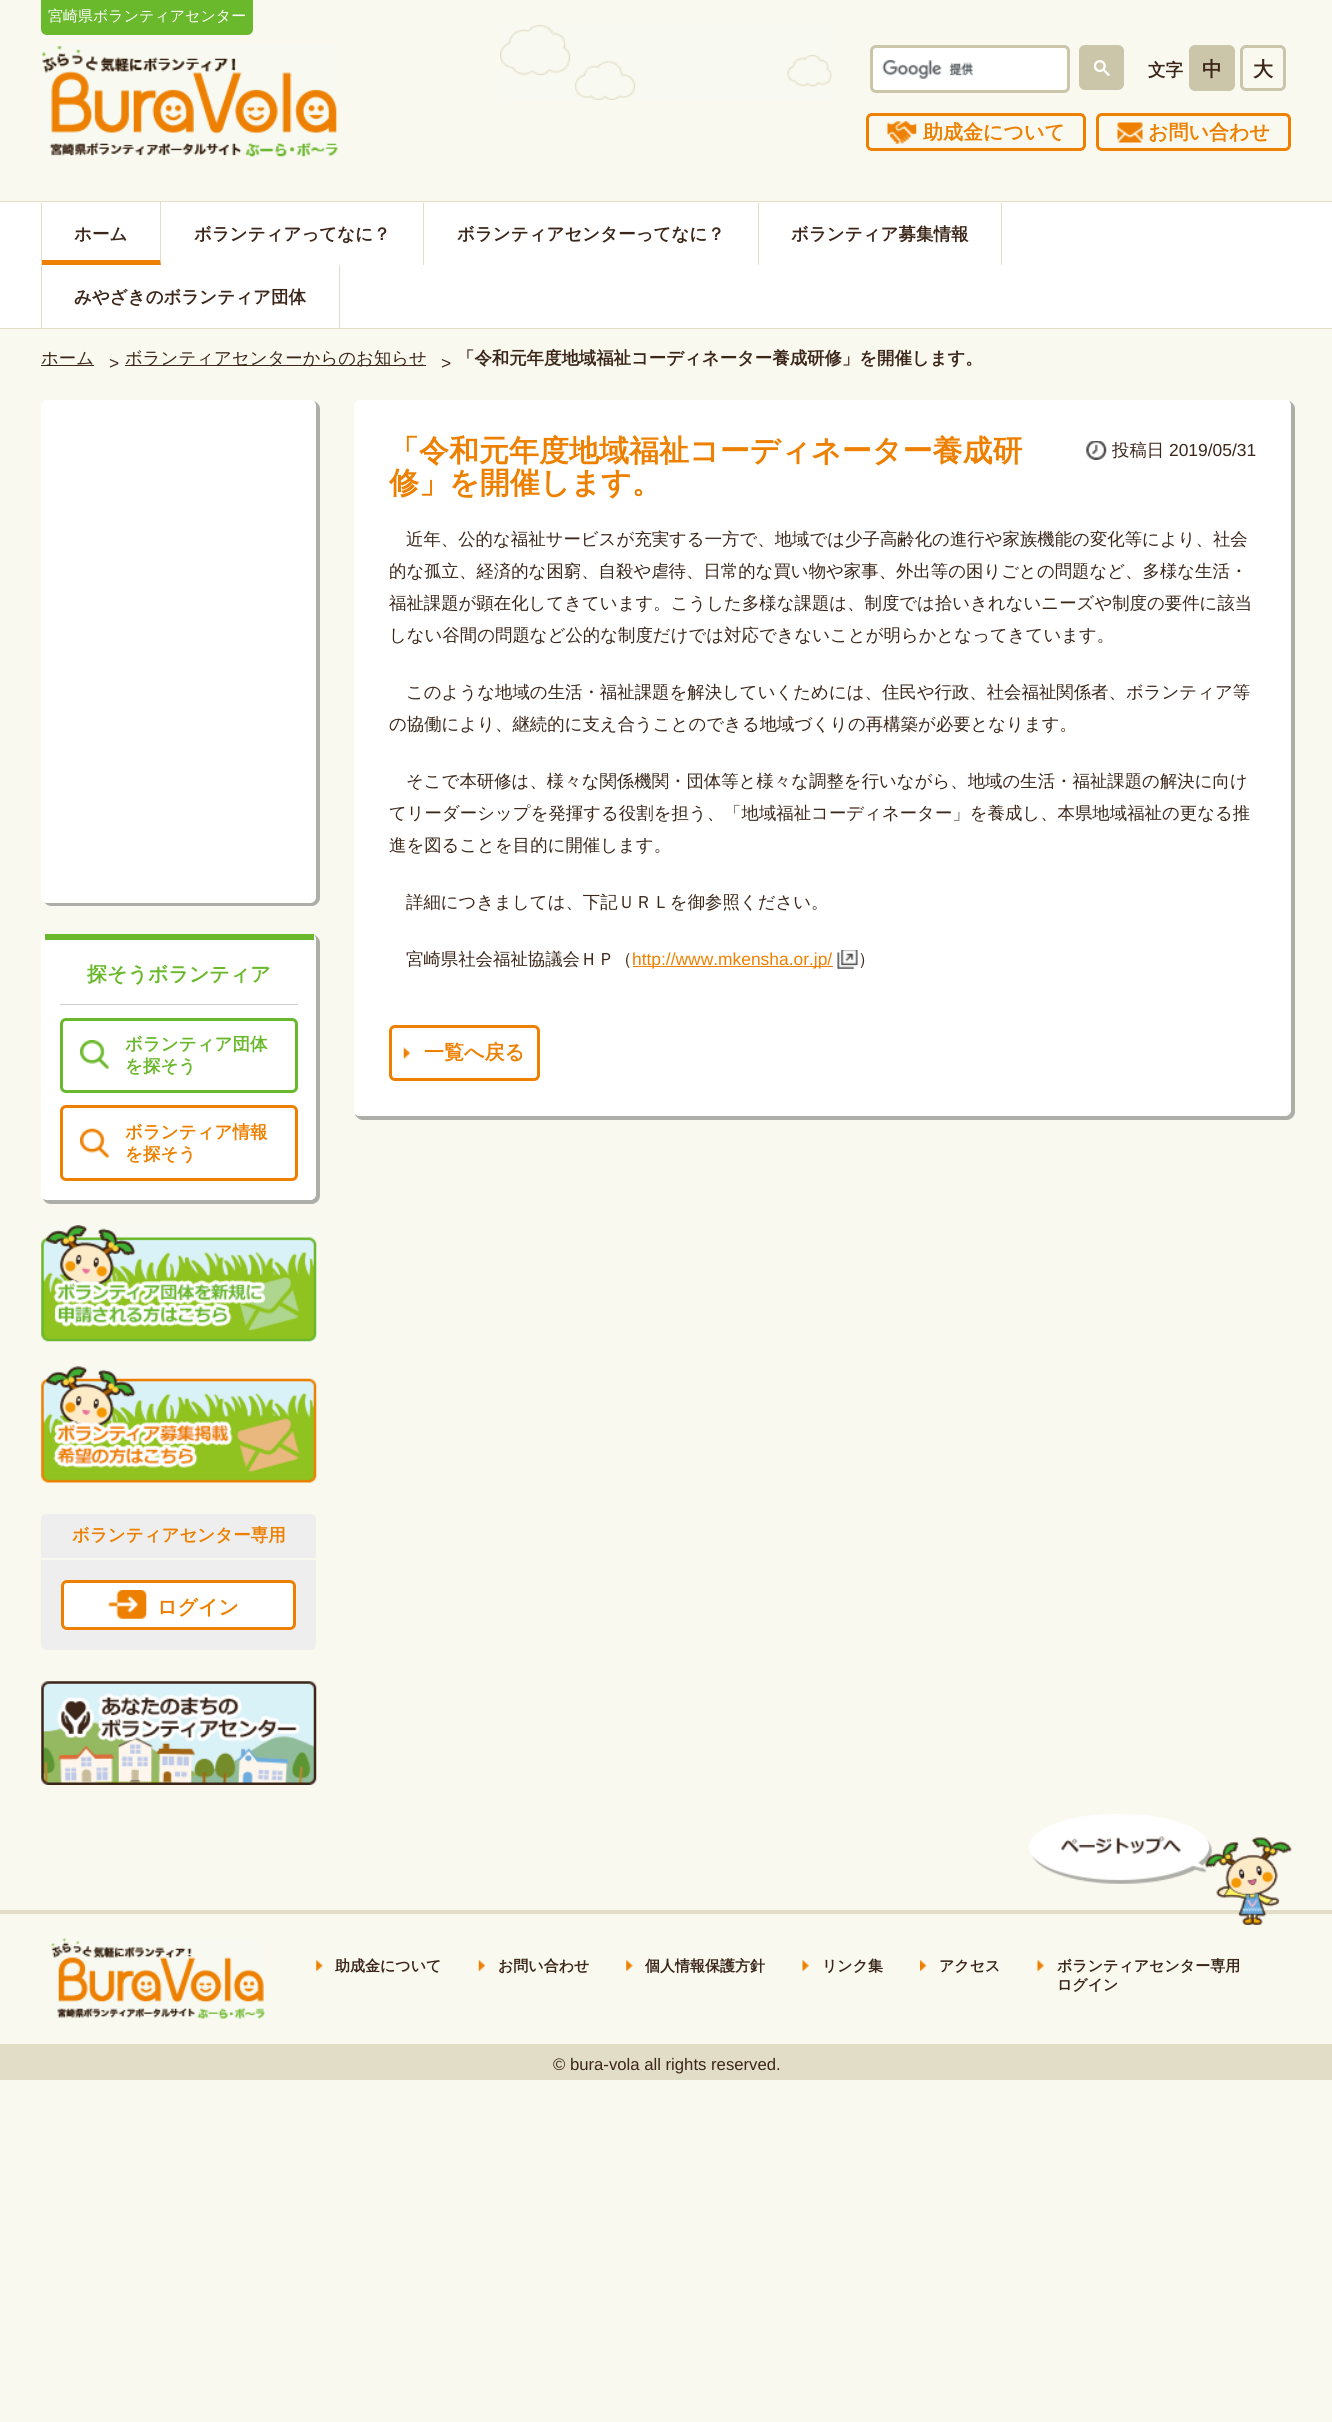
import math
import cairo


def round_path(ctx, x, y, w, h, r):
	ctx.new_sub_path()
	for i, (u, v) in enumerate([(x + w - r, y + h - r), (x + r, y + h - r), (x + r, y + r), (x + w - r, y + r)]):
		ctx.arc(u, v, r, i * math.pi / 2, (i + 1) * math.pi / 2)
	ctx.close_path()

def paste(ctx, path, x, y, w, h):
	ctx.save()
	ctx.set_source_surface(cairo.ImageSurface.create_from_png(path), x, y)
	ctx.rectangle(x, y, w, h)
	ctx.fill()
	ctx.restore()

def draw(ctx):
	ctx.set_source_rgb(0.973, 0.976, 0.941)
	ctx.paint()
	paste(ctx, 'media/1.png', 500, 25, 332, 75)
	ctx.set_source_rgb(0.416, 0.722, 0.173)
	ctx.new_path()
	ctx.move_to(41, 0)
	ctx.line_to(253, 0)
	ctx.line_to(253, 29)
	ctx.curve_to(253, 32.5, 250.5, 35, 247, 35)
	ctx.line_to(47, 35)
	ctx.curve_to(43.5, 35, 41, 32.5, 41, 29)
	ctx.close_path()
	ctx.fill()
	ctx.select_font_face('WenQuanYi Zen Hei Medium')
	ctx.set_font_size(15)
	ctx.set_source_rgb(1, 1, 1)
	ctx.move_to(48, 21)
	ctx.show_text('宮崎県ボランティアセンター')
	paste(ctx, 'media/2.png', 41, 45, 297, 112)
	round_path(ctx, 871.5, 46.5, 197, 45, 4.5)
	ctx.fill_preserve()
	ctx.set_source_rgb(0.796, 0.773, 0.663)
	ctx.set_line_width(3)
	ctx.stroke()
	paste(ctx, 'media/3.png', 882, 60, 92, 19)
	round_path(ctx, 1079, 45, 45, 45, 6)
	ctx.fill()
	paste(ctx, 'media/4.png', 1094, 60, 16, 16)
	ctx.select_font_face('WenQuanYi Zen Hei', cairo.FONT_SLANT_NORMAL, cairo.FONT_WEIGHT_BOLD)
	ctx.set_font_size(17.5)
	ctx.set_source_rgb(0.231, 0.149, 0.098)
	ctx.move_to(1148, 76)
	ctx.show_text('文字')
	ctx.set_source_rgb(0.796, 0.773, 0.663)
	round_path(ctx, 1190.5, 46.5, 43, 43, 4.5)
	ctx.fill_preserve()
	ctx.stroke()
	ctx.set_font_size(20)
	ctx.set_source_rgb(0.231, 0.149, 0.098)
	ctx.move_to(1202, 76)
	ctx.show_text('中')
	round_path(ctx, 1241.5, 46.5, 43, 43, 4.5)
	ctx.set_source_rgb(0.796, 0.773, 0.663)
	ctx.stroke()
	ctx.set_source_rgb(0.231, 0.149, 0.098)
	ctx.move_to(1253, 76)
	ctx.show_text('大')
	paste(ctx, 'media/5.png', 887, 121, 30, 23)
	round_path(ctx, 867.5, 114.5, 217, 35, 4.5)
	ctx.set_source_rgb(0.929, 0.502, 0)
	ctx.stroke()
	ctx.move_to(923, 139)
	ctx.show_text('助成金について')
	paste(ctx, 'media/6.png', 1117, 122, 26, 21)
	round_path(ctx, 1097.5, 114.5, 192, 35, 4.5)
	ctx.stroke()
	ctx.move_to(1148, 139)
	ctx.show_text('お問い合わせ')
	ctx.set_source_rgb(1, 1, 1)
	ctx.rectangle(0, 202, 1332, 126)
	ctx.fill()
	ctx.set_source_rgb(0.886, 0.867, 0.78)
	ctx.rectangle(0, 201, 1332, 1)
	ctx.rectangle(0, 328, 1332, 1)
	ctx.rectangle(41, 203, 1, 125)
	ctx.fill()
	ctx.new_path()
	ctx.move_to(161, 202)
	ctx.line_to(161, 265)
	ctx.line_to(160, 260)
	ctx.line_to(160, 202)
	ctx.close_path()
	ctx.fill()
	ctx.set_source_rgb(0.929, 0.502, 0)
	ctx.new_path()
	ctx.move_to(161, 265)
	ctx.line_to(42, 265)
	ctx.line_to(42, 260)
	ctx.line_to(160, 260)
	ctx.close_path()
	ctx.fill()
	ctx.set_font_size(17.5)
	ctx.set_source_rgb(0.231, 0.149, 0.098)
	ctx.move_to(74, 240)
	ctx.show_text('ホーム')
	ctx.set_source_rgb(0.886, 0.867, 0.78)
	ctx.rectangle(423, 203, 1, 62)
	ctx.fill()
	ctx.set_source_rgb(0.231, 0.149, 0.098)
	ctx.move_to(194, 240)
	ctx.show_text('ボランティアってなに？')
	ctx.set_source_rgb(0.886, 0.867, 0.78)
	ctx.rectangle(758, 203, 1, 62)
	ctx.fill()
	ctx.set_source_rgb(0.231, 0.149, 0.098)
	ctx.move_to(457, 240)
	ctx.show_text('ボランティアセンターってなに？')
	ctx.set_source_rgb(0.886, 0.867, 0.78)
	ctx.rectangle(1001, 203, 1, 62)
	ctx.fill()
	ctx.set_source_rgb(0.231, 0.149, 0.098)
	ctx.move_to(791, 240)
	ctx.show_text('ボランティア募集情報')
	ctx.set_source_rgb(0.886, 0.867, 0.78)
	ctx.rectangle(339, 265, 1, 63)
	ctx.fill()
	ctx.set_source_rgb(0.231, 0.149, 0.098)
	ctx.move_to(74, 303)
	ctx.show_text('みやざきのボランティア団体')
	ctx.rectangle(41, 365, 53, 1)
	ctx.fill()
	ctx.select_font_face('WenQuanYi Zen Hei Medium')
	ctx.set_font_size(17.4)
	ctx.move_to(41, 364)
	ctx.show_text('ホーム')
	ctx.select_font_face('Liberation Sans')
	ctx.move_to(109, 369)
	ctx.show_text('>')
	ctx.rectangle(125, 365, 301, 1)
	ctx.fill()
	ctx.select_font_face('WenQuanYi Zen Hei Medium')
	ctx.move_to(125, 364)
	ctx.show_text('ボランティアセンターからのお知らせ')
	ctx.select_font_face('Liberation Sans')
	ctx.move_to(441, 369)
	ctx.show_text('>')
	ctx.select_font_face('WenQuanYi Zen Hei', cairo.FONT_SLANT_NORMAL, cairo.FONT_WEIGHT_BOLD)
	ctx.move_to(457, 364)
	ctx.show_text('「令和元年度地域福祉コーディネーター養成研修」を開催します。')
	ctx.set_source_rgb(0.678, 0.682, 0.659)
	ctx.new_path()
	ctx.move_to(355, 1114)
	ctx.curve_to(356, 1117, 359, 1120, 363, 1120)
	ctx.line_to(1287, 1120)
	ctx.curve_to(1291, 1120, 1295, 1116, 1295, 1112)
	ctx.line_to(1295, 409)
	ctx.curve_to(1295, 405, 1292, 402, 1289, 401)
	ctx.curve_to(1290, 402, 1291, 404, 1291, 406)
	ctx.line_to(1291, 1110)
	ctx.curve_to(1291, 1113, 1288, 1116, 1285, 1116)
	ctx.line_to(360, 1116)
	ctx.curve_to(358, 1116, 356, 1115, 355, 1114)
	ctx.close_path()
	ctx.fill()
	ctx.set_source_rgb(1, 1, 1)
	round_path(ctx, 354, 400, 937, 716, 6)
	ctx.fill()
	ctx.set_font_size(30)
	ctx.set_source_rgb(0.929, 0.502, 0)
	ctx.move_to(389, 461)
	ctx.show_text('「令和元年度地域福祉コーディネーター養成研')
	paste(ctx, 'media/7.png', 1086, 441, 21, 19)
	ctx.select_font_face('WenQuanYi Zen Hei Medium')
	ctx.set_font_size(17.4)
	ctx.set_source_rgb(0.231, 0.149, 0.098)
	ctx.move_to(1112, 456)
	ctx.show_text('投稿日')
	ctx.select_font_face('Liberation Sans')
	ctx.move_to(1169, 456)
	ctx.show_text('2019/05/31')
	ctx.select_font_face('WenQuanYi Zen Hei', cairo.FONT_SLANT_NORMAL, cairo.FONT_WEIGHT_BOLD)
	ctx.set_font_size(30)
	ctx.set_source_rgb(0.929, 0.502, 0)
	ctx.move_to(389, 493)
	ctx.show_text('修」を開催します。')
	ctx.select_font_face('WenQuanYi Zen Hei Medium')
	ctx.set_font_size(17.4)
	ctx.set_source_rgb(0.231, 0.149, 0.098)
	for x, y, s in [
		(406, 545, '近年、公的な福祉サービスが充実する一方で、地域では少子高齢化の進行や家族機能の変化等により、社会'),
		(389, 577, '的な孤立、経済的な困窮、自殺や虐待、日常的な買い物や家事、外出等の困りごとの問題など、多様な生活・'),
		(389, 609, '福祉課題が顕在化してきています。こうした多様な課題は、制度では拾いきれないニーズや制度の要件に該当'),
		(389, 641, 'しない谷間の問題など公的な制度だけでは対応できないことが明らかとなってきています。'),
		(406, 698, 'このような地域の生活・福祉課題を解決していくためには、住民や行政、社会福祉関係者、ボランティア等'),
		(389, 730, 'の協働により、継続的に支え合うことのできる地域づくりの再構築が必要となります。'),
		(406, 787, 'そこで本研修は、様々な関係機関・団体等と様々な調整を行いながら、地域の生活・福祉課題の解決に向け'),
		(389, 819, 'てリーダーシップを発揮する役割を担う、「地域福祉コーディネーター」を養成し、本県地域福祉の更なる推'),
		(389, 851, '進を図ることを目的に開催します。'),
		(406, 908, '詳細につきましては、下記ＵＲＬを御参照ください。'),
		(406, 965, '宮崎県社会福祉協議会ＨＰ（'),
	]:
		ctx.move_to(x, y)
		ctx.show_text(s)
	ctx.set_source_rgb(0.929, 0.502, 0)
	ctx.rectangle(633, 966, 200, 1)
	ctx.fill()
	ctx.select_font_face('Liberation Sans')
	ctx.move_to(632, 965)
	ctx.show_text('http://www.mkensha.or.jp/')
	paste(ctx, 'media/8.png', 837, 950, 21, 19)
	ctx.select_font_face('WenQuanYi Zen Hei Medium')
	ctx.set_source_rgb(0.231, 0.149, 0.098)
	ctx.move_to(858, 965)
	ctx.show_text('）')
	paste(ctx, 'media/9.png', 403, 1047, 7, 12)
	round_path(ctx, 390.5, 1026.5, 148, 53, 4.5)
	ctx.set_source_rgb(0.929, 0.502, 0)
	ctx.stroke()
	ctx.select_font_face('WenQuanYi Zen Hei', cairo.FONT_SLANT_NORMAL, cairo.FONT_WEIGHT_BOLD)
	ctx.set_font_size(20)
	ctx.move_to(424, 1059)
	ctx.show_text('一覧へ戻る')
	ctx.set_source_rgb(0.678, 0.682, 0.659)
	ctx.new_path()
	ctx.move_to(44, 901)
	ctx.curve_to(45, 904, 48, 906, 51, 906)
	ctx.line_to(312, 906)
	ctx.curve_to(316, 906, 320, 902, 320, 898)
	ctx.line_to(320, 409)
	ctx.curve_to(320, 405, 317, 402, 314, 401)
	ctx.curve_to(315, 402, 316, 404, 316, 406)
	ctx.line_to(316, 896)
	ctx.curve_to(316, 900, 313, 902, 310, 902)
	ctx.line_to(48, 902)
	ctx.curve_to(46, 902, 45, 902, 44, 901)
	ctx.close_path()
	ctx.fill()
	ctx.set_source_rgb(1, 1, 1)
	round_path(ctx, 41, 400, 275, 503, 6)
	ctx.fill()
	ctx.set_source_rgb(0.678, 0.682, 0.659)
	ctx.new_path()
	ctx.move_to(43, 1198)
	ctx.curve_to(44, 1202, 47, 1204, 51, 1204)
	ctx.line_to(312, 1204)
	ctx.curve_to(316, 1204, 320, 1200, 320, 1196)
	ctx.line_to(320, 943)
	ctx.curve_to(320, 939, 317, 936, 314, 935)
	ctx.curve_to(315, 936, 316, 938, 316, 940)
	ctx.line_to(316, 1194)
	ctx.curve_to(316, 1197, 313, 1200, 310, 1200)
	ctx.line_to(48, 1200)
	ctx.curve_to(46, 1200, 44, 1199, 43, 1198)
	ctx.close_path()
	ctx.fill()
	ctx.set_source_rgb(1, 1, 1)
	round_path(ctx, 41, 934, 275, 266, 6)
	ctx.fill()
	ctx.set_source_rgb(0.416, 0.722, 0.173)
	ctx.rectangle(45, 934, 269, 6)
	ctx.fill()
	ctx.set_source_rgb(0.808, 0.808, 0.808)
	ctx.rectangle(60, 1004, 238, 1)
	ctx.fill()
	ctx.set_source_rgb(0.416, 0.722, 0.173)
	ctx.move_to(87, 981)
	ctx.show_text('探そうボランティア')
	paste(ctx, 'media/10.png', 80, 1040, 29, 29)
	round_path(ctx, 61.5, 1019.5, 235, 72, 4.5)
	ctx.stroke()
	ctx.set_font_size(17.5)
	ctx.move_to(125, 1050)
	ctx.show_text('ボランティア団体')
	ctx.move_to(125, 1072)
	ctx.show_text('を探そう')
	paste(ctx, 'media/11.png', 80, 1128, 29, 30)
	round_path(ctx, 61.5, 1106.5, 235, 73, 4.5)
	ctx.set_source_rgb(0.929, 0.502, 0)
	ctx.stroke()
	ctx.move_to(125, 1138)
	ctx.show_text('ボランティア情報')
	ctx.move_to(125, 1160)
	ctx.show_text('を探そう')
	paste(ctx, 'media/12.png', 41, 1225, 276, 117)
	paste(ctx, 'media/13.png', 41, 1366, 276, 117)
	ctx.set_source_rgb(0.933, 0.933, 0.933)
	ctx.new_path()
	ctx.move_to(47, 1514)
	ctx.line_to(310, 1514)
	ctx.curve_to(313.5, 1514, 316, 1516.5, 316, 1520)
	ctx.line_to(316, 1560)
	ctx.line_to(41, 1560)
	ctx.line_to(41, 1520)
	ctx.curve_to(41, 1516.5, 43.5, 1514, 47, 1514)
	ctx.close_path()
	ctx.fill()
	ctx.set_source_rgb(0.973, 0.976, 0.941)
	ctx.rectangle(41, 1558, 275, 2)
	ctx.fill()
	ctx.set_source_rgb(0.929, 0.502, 0)
	ctx.move_to(72, 1541)
	ctx.show_text('ボランティアセンター専用')
	ctx.set_source_rgb(0.933, 0.933, 0.933)
	ctx.new_path()
	ctx.move_to(41, 1560)
	ctx.line_to(316, 1560)
	ctx.line_to(316, 1644)
	ctx.curve_to(316, 1647.5, 313.5, 1650, 310, 1650)
	ctx.line_to(47, 1650)
	ctx.curve_to(43.5, 1650, 41, 1647.5, 41, 1644)
	ctx.close_path()
	ctx.fill()
	ctx.set_source_rgb(1, 1, 1)
	round_path(ctx, 61, 1580, 235, 50, 6)
	ctx.fill()
	paste(ctx, 'media/14.png', 108, 1590, 39, 29)
	round_path(ctx, 62.5, 1581.5, 232, 47, 4.5)
	ctx.set_source_rgb(0.929, 0.502, 0)
	ctx.stroke()
	ctx.set_font_size(20)
	ctx.move_to(157, 1614)
	ctx.show_text('ログイン')
	paste(ctx, 'media/15.png', 41, 1681, 276, 104)
	ctx.set_source_rgb(0.886, 0.867, 0.78)
	ctx.rectangle(0, 1910, 1332, 4)
	ctx.fill()
	paste(ctx, 'media/16.png', 1029, 1814, 263, 111)
	paste(ctx, 'media/17.png', 51, 1938, 214, 81)
	paste(ctx, 'media/18.png', 316, 1960, 7, 12)
	ctx.set_font_size(15)
	ctx.set_source_rgb(0.231, 0.149, 0.098)
	ctx.move_to(335, 1971)
	ctx.show_text('助成金について')
	paste(ctx, 'media/19.png', 478, 1960, 7, 12)
	ctx.move_to(498, 1971)
	ctx.show_text('お問い合わせ')
	paste(ctx, 'media/18.png', 626, 1960, 7, 12)
	ctx.move_to(645, 1971)
	ctx.show_text('個人情報保護方針')
	paste(ctx, 'media/20.png', 802, 1960, 7, 12)
	ctx.move_to(822, 1971)
	ctx.show_text('リンク集')
	paste(ctx, 'media/21.png', 920, 1960, 7, 12)
	ctx.move_to(939, 1971)
	ctx.show_text('アクセス')
	paste(ctx, 'media/20.png', 1037, 1960, 7, 12)
	ctx.move_to(1057, 1971)
	ctx.show_text('ボランティアセンター専用')
	ctx.move_to(1057, 1990)
	ctx.show_text('ログイン')
	ctx.set_source_rgb(0.886, 0.867, 0.78)
	ctx.rectangle(0, 2044, 1332, 36)
	ctx.fill()
	ctx.select_font_face('Liberation Sans')
	ctx.set_font_size(16.7)
	ctx.set_source_rgb(0.231, 0.149, 0.098)
	ctx.move_to(553, 2070)
	ctx.show_text('© bura-vola all rights reserved.')


surface = cairo.ImageSurface(cairo.FORMAT_RGB24, 1332, 2422)
ctx = cairo.Context(surface)
options = cairo.FontOptions()
options.set_hint_metrics(cairo.HINT_METRICS_OFF)
options.set_hint_style(cairo.HINT_STYLE_NONE)
ctx.set_font_options(options)
ctx.set_miter_limit(4)
draw(ctx)
surface.write_to_png('image.png')
